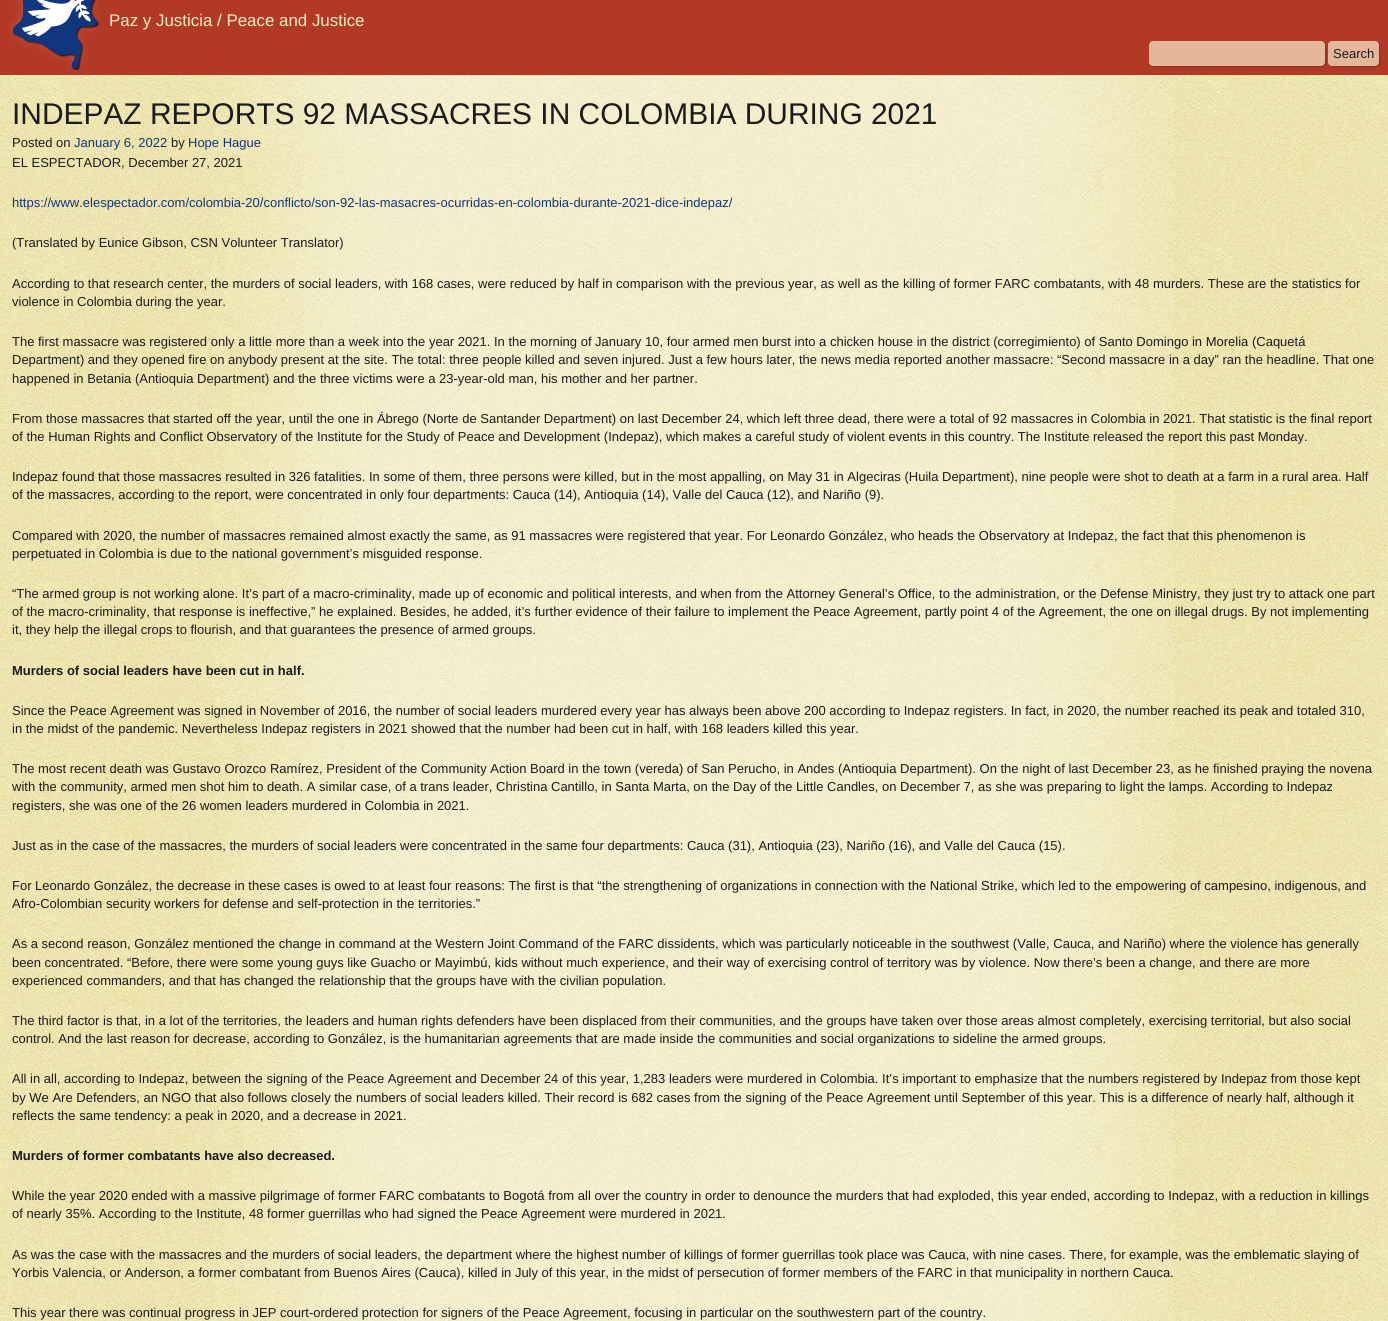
import math
import cairo


def round_path(ctx, x, y, w, h, r):
	ctx.new_sub_path()
	for i, (u, v) in enumerate([(x + w - r, y + h - r), (x + r, y + h - r), (x + r, y + r), (x + w - r, y + r)]):
		ctx.arc(u, v, r, i * math.pi / 2, (i + 1) * math.pi / 2)
	ctx.close_path()

def blur_box(ctx, x, y, w, h, r, blur, alpha):
	ctx.push_group_with_content(cairo.CONTENT_ALPHA)
	ctx.set_operator(cairo.OPERATOR_SOURCE)
	for i in range(15, -16, -2):
		e = blur * i / 6
		if min(w, h) + 2 * e > 0:
			ctx.set_source_rgba(0, 0, 0, alpha * math.erfc((i - 1) / 8.5) / 2)
			round_path(ctx, x - e, y - e, w + 2 * e, h + 2 * e, max(0, min(r + e + blur * .6, min(w, h) / 2 + e)))
			ctx.fill()
	ctx.mask(ctx.pop_group())

def paste(ctx, path, x, y, w, h):
	ctx.save()
	ctx.set_source_surface(cairo.ImageSurface.create_from_png(path), x, y)
	ctx.rectangle(x, y, w, h)
	ctx.fill()
	ctx.restore()

def draw(ctx):
	ctx.set_source_rgb(1, 1, 1)
	ctx.paint()
	paste(ctx, 'media/1.png', 0, 75, 1388, 1246)
	ctx.set_source_rgb(0.698, 0.224, 0.149)
	ctx.rectangle(0, 0, 1388, 75)
	ctx.fill()
	paste(ctx, 'media/2.png', 10, 0, 89, 71)
	ctx.select_font_face('Liberation Sans')
	ctx.set_font_size(16.9)
	ctx.set_source_rgb(0.98, 0.929, 0.753)
	ctx.move_to(109, 26)
	ctx.show_text('Paz y Justicia / Peace and Justice')
	ctx.set_source_rgb(0, 0, 0)
	blur_box(ctx, 1150, 42, 176, 25, 4, 0.5, 0.2)
	ctx.set_source_rgb(0.898, 0.718, 0.604)
	round_path(ctx, 1149, 41, 176, 25, 4)
	ctx.fill()
	ctx.set_source_rgb(0, 0, 0)
	blur_box(ctx, 1329, 42, 51, 25, 4, 0.5, 0.2)
	ctx.set_source_rgb(0.898, 0.718, 0.604)
	round_path(ctx, 1328, 41, 51, 25, 4)
	ctx.fill()
	ctx.set_font_size(13)
	ctx.set_source_rgb(0.106, 0.106, 0.106)
	ctx.move_to(1333, 58)
	ctx.show_text('Search')
	paste(ctx, 'media/3.png', 214, 76, 960, 1245)
	ctx.set_font_size(29.9)
	ctx.move_to(12, 124)
	ctx.show_text('INDEPAZ REPORTS 92 MASSACRES IN COLOMBIA DURING 2021')
	ctx.set_font_size(13)
	ctx.move_to(12, 147)
	ctx.show_text('Posted on')
	ctx.set_source_rgb(0.067, 0.208, 0.494)
	ctx.move_to(74, 147)
	ctx.show_text('January 6, 2022')
	ctx.set_source_rgb(0.106, 0.106, 0.106)
	ctx.move_to(171, 147)
	ctx.show_text('by')
	ctx.set_source_rgb(0.067, 0.208, 0.494)
	ctx.move_to(188, 147)
	ctx.show_text('Hope Hague')
	ctx.set_source_rgb(0.106, 0.106, 0.106)
	ctx.move_to(12, 167)
	ctx.show_text('EL ESPECTADOR, December 27, 2021')
	ctx.set_source_rgb(0.067, 0.208, 0.494)
	ctx.move_to(12, 207)
	ctx.show_text('https://www.elespectador.com/colombia-20/conflicto/son-92-las-masacres-ocurridas-en-colombia-durante-2021-dice-indepaz/')
	ctx.set_source_rgb(0.106, 0.106, 0.106)
	for x, y, s in [
		(12, 247, '(Translated by Eunice Gibson, CSN Volunteer Translator)'),
		(12, 288, 'According to that research center, the murders of social leaders, with 168 cases, were reduced by half in comparison with the previous year, as well as the killing of former FARC combatants, with 48 murders. These are the statistics for'),
		(12, 306, 'violence in Colombia during the year.'),
		(12, 346, 'The first massacre was registered only a little more than a week into the year 2021. In the morning of January 10, four armed men burst into a chicken house in the district (corregimiento) of Santo Domingo in Morelia (Caquetá'),
		(12, 364, 'Department) and they opened fire on anybody present at the site. The total: three people killed and seven injured. Just a few hours later, the news media reported another massacre: “Second massacre in a day” ran the headline. That one'),
		(12, 383, 'happened in Betania (Antioquia Department) and the three victims were a 23-year-old man, his mother and her partner.'),
		(12, 423, 'From those massacres that started off the year, until the one in Ábrego (Norte de Santander Department) on last December 24, which left three dead, there were a total of 92 massacres in Colombia in 2021. That statistic is the final report'),
		(12, 441, 'of the Human Rights and Conflict Observatory of the Institute for the Study of Peace and Development (Indepaz), which makes a careful study of violent events in this country. The Institute released the report this past Monday.'),
		(12, 481, 'Indepaz found that those massacres resulted in 326 fatalities. In some of them, three persons were killed, but in the most appalling, on May 31 in Algeciras (Huila Department), nine people were shot to death at a farm in a rural area. Half'),
		(12, 499, 'of the massacres, according to the report, were concentrated in only four departments: Cauca (14), Antioquia (14), Valle del Cauca (12), and Nariño (9).'),
		(12, 540, 'Compared with 2020, the number of massacres remained almost exactly the same, as 91 massacres were registered that year. For Leonardo González, who heads the Observatory at Indepaz, the fact that this phenomenon is'),
		(12, 558, 'perpetuated in Colombia is due to the national government’s misguided response.'),
		(12, 598, '“The armed group is not working alone. It’s part of a macro-criminality, made up of economic and political interests, and when from the Attorney General’s Office, to the administration, or the Defense Ministry, they just try to attack one part'),
		(12, 616, 'of the macro-criminality, that response is ineffective,” he explained. Besides, he added, it’s further evidence of their failure to implement the Peace Agreement, partly point 4 of the Agreement, the one on illegal drugs. By not implementing'),
		(12, 634, 'it, they help the illegal crops to flourish, and that guarantees the presence of armed groups.'),
	]:
		ctx.move_to(x, y)
		ctx.show_text(s)
	ctx.select_font_face('Liberation Sans', cairo.FONT_SLANT_NORMAL, cairo.FONT_WEIGHT_BOLD)
	ctx.move_to(12, 675)
	ctx.show_text('Murders of social leaders have been cut in half.')
	ctx.select_font_face('Liberation Sans')
	for x, y, s in [
		(12, 715, 'Since the Peace Agreement was signed in November of 2016, the number of social leaders murdered every year has always been above 200 according to Indepaz registers. In fact, in 2020, the number reached its peak and totaled 310,'),
		(12, 733, 'in the midst of the pandemic. Nevertheless Indepaz registers in 2021 showed that the number had been cut in half, with 168 leaders killed this year.'),
		(12, 773, 'The most recent death was Gustavo Orozco Ramírez, President of the Community Action Board in the town (vereda) of San Perucho, in Andes (Antioquia Department). On the night of last December 23, as he finished praying the novena'),
		(12, 791, 'with the community, armed men shot him to death. A similar case, of a trans leader, Christina Cantillo, in Santa Marta, on the Day of the Little Candles, on December 7, as she was preparing to light the lamps. According to Indepaz'),
		(12, 810, 'registers, she was one of the 26 women leaders murdered in Colombia in 2021.'),
		(12, 850, 'Just as in the case of the massacres, the murders of social leaders were concentrated in the same four departments: Cauca (31), Antioquia (23), Nariño (16), and Valle del Cauca (15).'),
		(12, 890, 'For Leonardo González, the decrease in these cases is owed to at least four reasons: The first is that “the strengthening of organizations in connection with the National Strike, which led to the empowering of campesino, indigenous, and'),
		(12, 908, 'Afro-Colombian security workers for defense and self-protection in the territories.”'),
		(12, 948, 'As a second reason, González mentioned the change in command at the Western Joint Command of the FARC dissidents, which was particularly noticeable in the southwest (Valle, Cauca, and Nariño) where the violence has generally'),
		(12, 967, 'been concentrated. “Before, there were some young guys like Guacho or Mayimbú, kids without much experience, and their way of exercising control of territory was by violence. Now there’s been a change, and there are more'),
		(12, 985, 'experienced commanders, and that has changed the relationship that the groups have with the civilian population.'),
		(12, 1025, 'The third factor is that, in a lot of the territories, the leaders and human rights defenders have been displaced from their communities, and the groups have taken over those areas almost completely, exercising territorial, but also social'),
		(12, 1043, 'control. And the last reason for decrease, according to González, is the humanitarian agreements that are made inside the communities and social organizations to sideline the armed groups.'),
		(12, 1083, 'All in all, according to Indepaz, between the signing of the Peace Agreement and December 24 of this year, 1,283 leaders were murdered in Colombia. It’s important to emphasize that the numbers registered by Indepaz from those kept'),
		(12, 1102, 'by We Are Defenders, an NGO that also follows closely the numbers of social leaders killed. Their record is 682 cases from the signing of the Peace Agreement until September of this year. This is a difference of nearly half, although it'),
		(12, 1120, 'reflects the same tendency: a peak in 2020, and a decrease in 2021.'),
	]:
		ctx.move_to(x, y)
		ctx.show_text(s)
	ctx.select_font_face('Liberation Sans', cairo.FONT_SLANT_NORMAL, cairo.FONT_WEIGHT_BOLD)
	ctx.move_to(12, 1160)
	ctx.show_text('Murders of former combatants have also decreased.')
	ctx.select_font_face('Liberation Sans')
	for x, y, s in [
		(12, 1200, 'While the year 2020 ended with a massive pilgrimage of former FARC combatants to Bogotá from all over the country in order to denounce the murders that had exploded, this year ended, according to Indepaz, with a reduction in killings'),
		(12, 1218, 'of nearly 35%. According to the Institute, 48 former guerrillas who had signed the Peace Agreement were murdered in 2021.'),
		(12, 1259, 'As was the case with the massacres and the murders of social leaders, the department where the highest number of killings of former guerrillas took place was Cauca, with nine cases. There, for example, was the emblematic slaying of'),
		(12, 1277, 'Yorbis Valencia, or Anderson, a former combatant from Buenos Aires (Cauca), killed in July of this year, in the midst of persecution of former members of the FARC in that municipality in northern Cauca.'),
		(12, 1317, 'This year there was continual progress in JEP court-ordered protection for signers of the Peace Agreement, focusing in particular on the southwestern part of the country.'),
	]:
		ctx.move_to(x, y)
		ctx.show_text(s)


surface = cairo.ImageSurface(cairo.FORMAT_RGB24, 1388, 1321)
ctx = cairo.Context(surface)
options = cairo.FontOptions()
options.set_hint_metrics(cairo.HINT_METRICS_OFF)
options.set_hint_style(cairo.HINT_STYLE_NONE)
ctx.set_font_options(options)
ctx.set_miter_limit(4)
draw(ctx)
surface.write_to_png('image.png')
